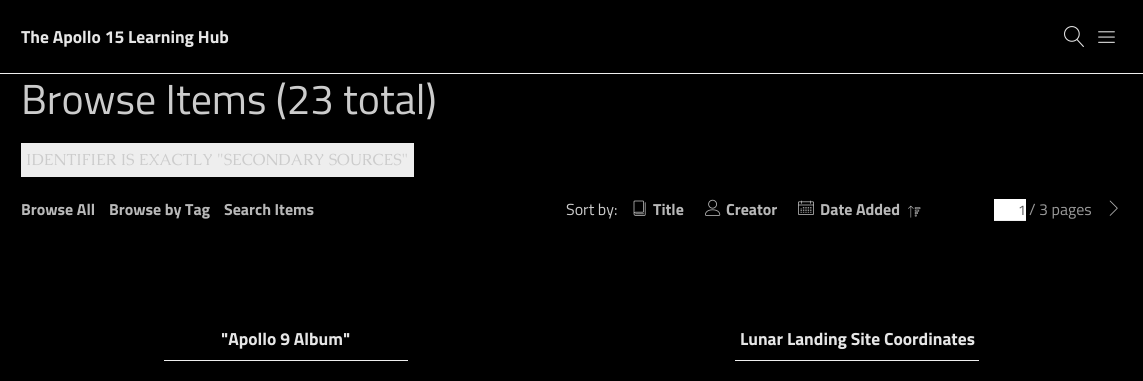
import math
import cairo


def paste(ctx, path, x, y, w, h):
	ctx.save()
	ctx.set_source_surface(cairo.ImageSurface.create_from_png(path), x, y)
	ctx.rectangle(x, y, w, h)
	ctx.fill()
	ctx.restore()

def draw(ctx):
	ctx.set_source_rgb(0, 0, 0)
	ctx.paint()
	ctx.select_font_face('Titillium Web', cairo.FONT_SLANT_NORMAL, cairo.FONT_WEIGHT_BOLD)
	ctx.set_font_size(17.5)
	ctx.set_source_rgb(0.902, 0.902, 0.902)
	ctx.move_to(21, 43)
	ctx.show_text('The Apollo 15 Learning Hub')
	paste(ctx, 'media/1.png', 1064, 26, 20, 21)
	paste(ctx, 'media/2.png', 1098, 31, 17, 12)
	ctx.set_source_rgb(0.933, 0.933, 0.933)
	ctx.rectangle(0, 73, 1143, 1)
	ctx.fill()
	ctx.select_font_face('Titillium Web')
	ctx.set_font_size(42)
	ctx.set_source_rgb(0.8, 0.8, 0.8)
	ctx.move_to(21, 114)
	ctx.show_text('Browse Items (23 total)')
	ctx.set_source_rgb(0.933, 0.933, 0.933)
	ctx.rectangle(21, 143, 393, 34)
	ctx.fill()
	ctx.select_font_face('Caudex')
	ctx.set_font_size(16)
	ctx.set_source_rgb(0.8, 0.8, 0.8)
	ctx.move_to(26, 165)
	ctx.show_text('IDENTIFIER IS EXACTLY "SECONDARY SOURCES"')
	ctx.select_font_face('Titillium Web', cairo.FONT_SLANT_NORMAL, cairo.FONT_WEIGHT_BOLD)
	ctx.set_source_rgb(0.722, 0.722, 0.722)
	for x, y, s in [
		(21, 215, 'Browse All'),
		(109, 215, 'Browse by Tag'),
		(224, 215, 'Search Items'),
	]:
		ctx.move_to(x, y)
		ctx.show_text(s)
	ctx.select_font_face('Titillium Web')
	ctx.set_source_rgb(0.8, 0.8, 0.8)
	ctx.move_to(566, 215)
	ctx.show_text('Sort by:')
	paste(ctx, 'media/3.png', 633, 200, 13, 16)
	ctx.select_font_face('Titillium Web', cairo.FONT_SLANT_NORMAL, cairo.FONT_WEIGHT_BOLD)
	ctx.set_source_rgb(0.722, 0.722, 0.722)
	ctx.move_to(653, 215)
	ctx.show_text('Title')
	paste(ctx, 'media/4.png', 705, 199, 16, 17)
	ctx.move_to(726, 215)
	ctx.show_text('Creator')
	paste(ctx, 'media/5.png', 798, 200, 16, 15)
	ctx.move_to(820, 215)
	ctx.show_text('Date Added')
	paste(ctx, 'media/6.png', 908, 205, 13, 13)
	ctx.set_source_rgb(1, 1, 1)
	ctx.rectangle(994, 199, 32, 21)
	ctx.fill()
	ctx.set_source_rgb(0.933, 0.933, 0.933)
	ctx.rectangle(994, 220, 32, 1)
	ctx.fill()
	ctx.select_font_face('Titillium Web')
	ctx.set_font_size(14)
	ctx.set_source_rgb(0.333, 0.333, 0.333)
	ctx.move_to(1018, 215)
	ctx.show_text('1')
	ctx.set_font_size(16)
	ctx.set_source_rgb(0.6, 0.6, 0.6)
	ctx.move_to(1029, 215)
	ctx.show_text('/ 3 pages')
	paste(ctx, 'media/7.png', 1109, 200, 9, 16)
	ctx.select_font_face('Titillium Web', cairo.FONT_SLANT_NORMAL, cairo.FONT_WEIGHT_BOLD)
	ctx.set_font_size(17.5)
	ctx.set_source_rgb(0.902, 0.902, 0.902)
	ctx.move_to(221, 345)
	ctx.show_text('"Apollo 9 Album"')
	ctx.set_source_rgb(0.933, 0.933, 0.933)
	ctx.rectangle(164, 360, 244, 1)
	ctx.fill()
	ctx.set_source_rgb(0.902, 0.902, 0.902)
	ctx.move_to(740, 345)
	ctx.show_text('Lunar Landing Site Coordinates')
	ctx.set_source_rgb(0.933, 0.933, 0.933)
	ctx.rectangle(735, 360, 244, 1)
	ctx.fill()


surface = cairo.ImageSurface(cairo.FORMAT_RGB24, 1143, 381)
ctx = cairo.Context(surface)
options = cairo.FontOptions()
options.set_hint_metrics(cairo.HINT_METRICS_OFF)
options.set_hint_style(cairo.HINT_STYLE_NONE)
ctx.set_font_options(options)
ctx.set_miter_limit(4)
draw(ctx)
surface.write_to_png('image.png')
